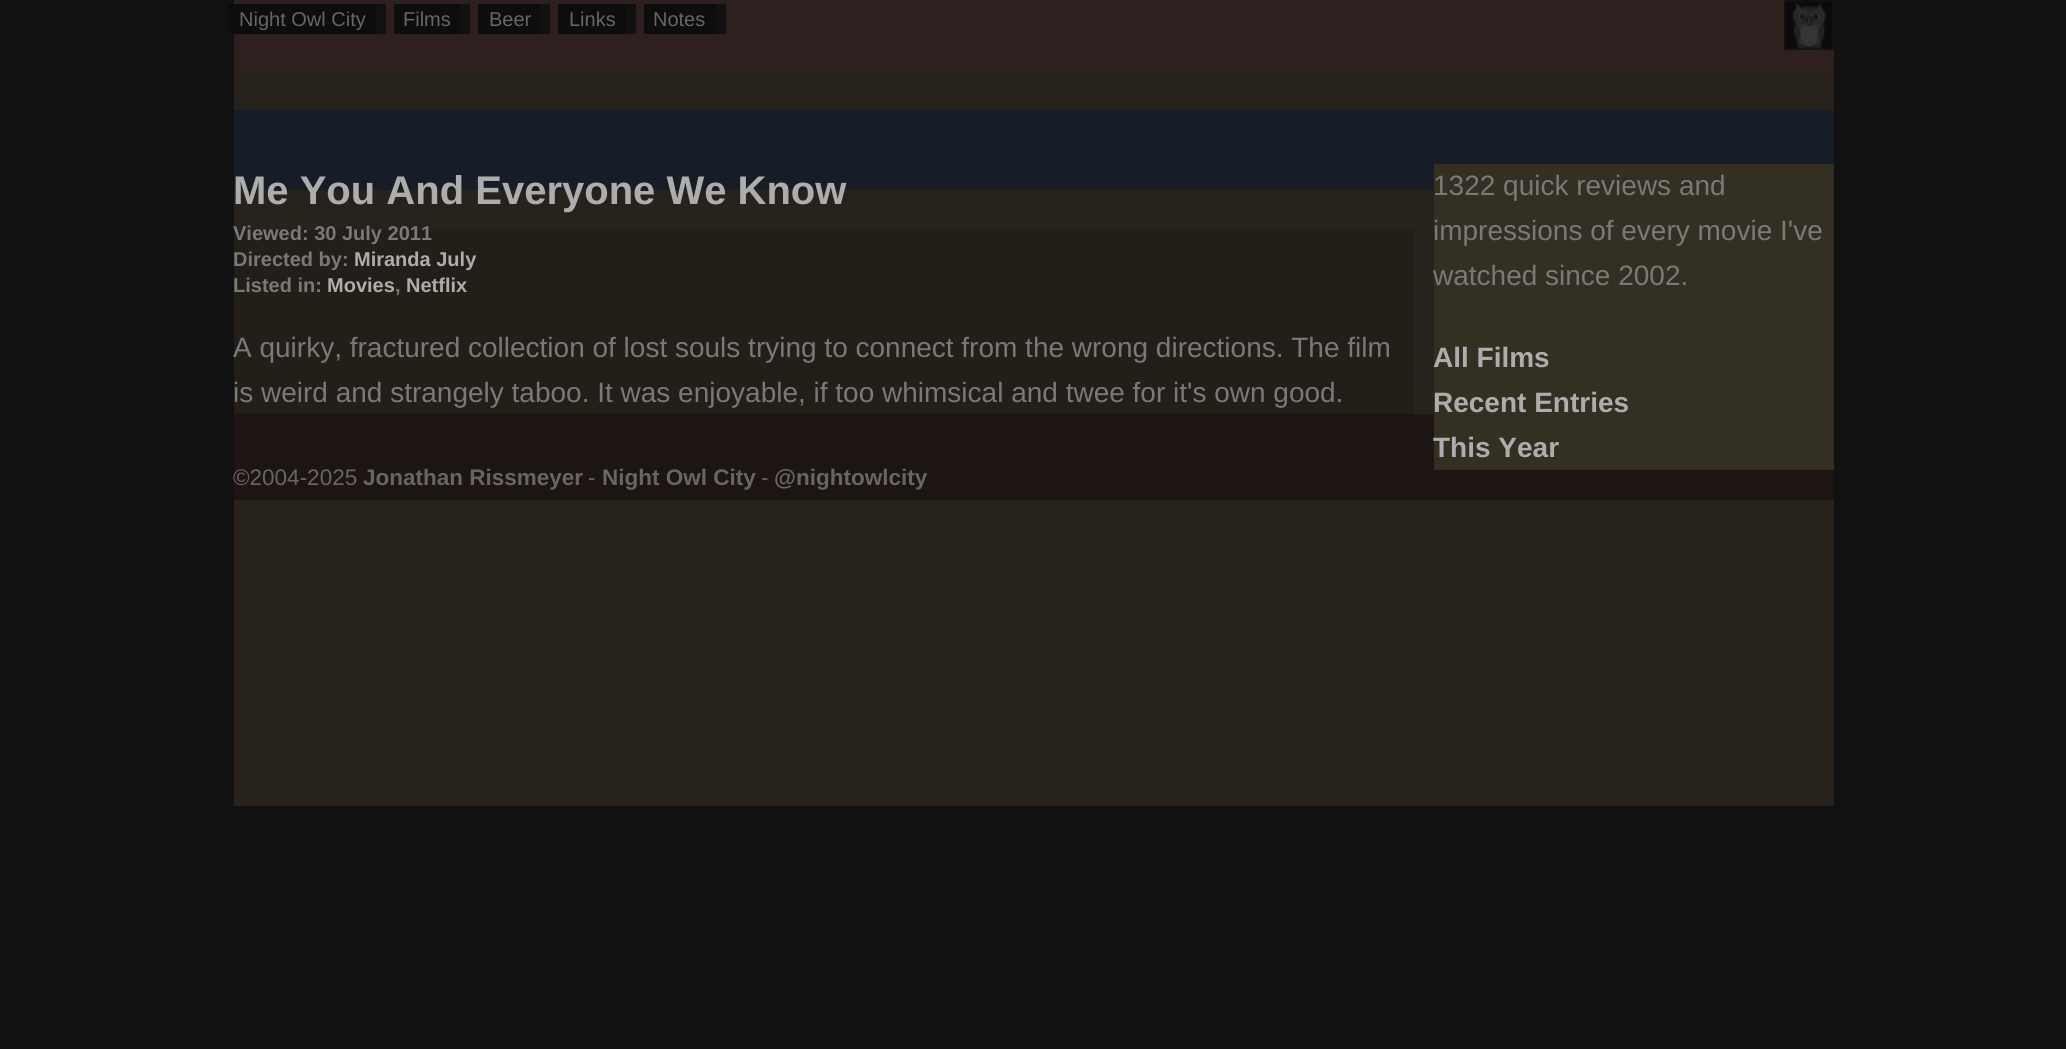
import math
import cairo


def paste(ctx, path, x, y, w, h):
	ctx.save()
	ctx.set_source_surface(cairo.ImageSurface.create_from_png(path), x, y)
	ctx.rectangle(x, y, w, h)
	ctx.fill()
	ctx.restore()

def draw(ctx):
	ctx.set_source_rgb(0.067, 0.067, 0.067)
	ctx.paint()
	ctx.set_source_rgb(0.153, 0.133, 0.11)
	ctx.rectangle(234, 74, 1600, 732)
	ctx.fill()
	ctx.set_source_rgb(0.18, 0.125, 0.118)
	ctx.rectangle(234, 0, 1600, 74)
	ctx.fill()
	ctx.set_source_rgb(0.051, 0.051, 0.051)
	ctx.rectangle(228, 4, 148, 30)
	ctx.fill()
	ctx.select_font_face('Liberation Sans')
	ctx.set_font_size(20)
	ctx.set_source_rgb(0.4, 0.4, 0.4)
	ctx.move_to(239, 26)
	ctx.show_text('Night Owl City')
	ctx.set_source_rgb(0.067, 0.067, 0.067)
	ctx.rectangle(376, 4, 10, 30)
	ctx.fill()
	ctx.set_source_rgb(0.051, 0.051, 0.051)
	ctx.rectangle(394, 4, 66, 30)
	ctx.fill()
	ctx.set_source_rgb(0.4, 0.4, 0.4)
	ctx.move_to(403, 26)
	ctx.show_text('Films')
	ctx.set_source_rgb(0.067, 0.067, 0.067)
	ctx.rectangle(460, 4, 10, 30)
	ctx.fill()
	ctx.set_source_rgb(0.051, 0.051, 0.051)
	ctx.rectangle(478, 4, 62, 30)
	ctx.fill()
	ctx.set_source_rgb(0.4, 0.4, 0.4)
	ctx.move_to(489, 26)
	ctx.show_text('Beer')
	ctx.set_source_rgb(0.067, 0.067, 0.067)
	ctx.rectangle(540, 4, 10, 30)
	ctx.fill()
	ctx.set_source_rgb(0.051, 0.051, 0.051)
	ctx.rectangle(558, 4, 68, 30)
	ctx.fill()
	ctx.set_source_rgb(0.4, 0.4, 0.4)
	ctx.move_to(569, 26)
	ctx.show_text('Links')
	ctx.set_source_rgb(0.067, 0.067, 0.067)
	ctx.rectangle(626, 4, 10, 30)
	ctx.fill()
	ctx.set_source_rgb(0.051, 0.051, 0.051)
	ctx.rectangle(644, 4, 72, 30)
	ctx.fill()
	ctx.set_source_rgb(0.4, 0.4, 0.4)
	ctx.move_to(653, 26)
	ctx.show_text('Notes')
	ctx.set_source_rgb(0.067, 0.067, 0.067)
	ctx.rectangle(716, 4, 10, 30)
	ctx.fill()
	paste(ctx, 'media/1.png', 1784, 0, 50, 50)
	ctx.set_source_rgb(0.09, 0.114, 0.153)
	ctx.rectangle(234, 110, 1600, 80)
	ctx.fill()
	ctx.select_font_face('Liberation Sans', cairo.FONT_SLANT_NORMAL, cairo.FONT_WEIGHT_BOLD)
	ctx.set_font_size(40)
	ctx.set_source_rgb(0.678, 0.678, 0.678)
	ctx.move_to(233, 204)
	ctx.show_text('Me You And Everyone We Know')
	ctx.set_source_rgb(0.114, 0.082, 0.082)
	ctx.rectangle(234, 414, 1600, 86)
	ctx.fill()
	ctx.set_source_rgb(0.2, 0.184, 0.137)
	ctx.rectangle(1434, 164, 400, 306)
	ctx.fill()
	ctx.select_font_face('Liberation Sans')
	ctx.set_font_size(28)
	ctx.set_source_rgb(0.475, 0.475, 0.475)
	for x, y, s in [
		(1433, 195, '1322 quick reviews and'),
		(1433, 240, 'impressions of every movie I\'ve'),
		(1433, 285, 'watched since 2002.'),
	]:
		ctx.move_to(x, y)
		ctx.show_text(s)
	ctx.select_font_face('Liberation Sans', cairo.FONT_SLANT_NORMAL, cairo.FONT_WEIGHT_BOLD)
	ctx.set_source_rgb(0.678, 0.678, 0.678)
	for x, y, s in [
		(1433, 367, 'All Films'),
		(1433, 412, 'Recent Entries'),
		(1433, 457, 'This Year'),
	]:
		ctx.move_to(x, y)
		ctx.show_text(s)
	ctx.set_source_rgb(0.137, 0.118, 0.094)
	ctx.rectangle(234, 230, 1180, 184)
	ctx.fill()
	ctx.set_font_size(20)
	ctx.set_source_rgb(0.475, 0.475, 0.475)
	ctx.move_to(233, 240)
	ctx.show_text('Viewed: 30 July 2011')
	ctx.move_to(233, 266)
	ctx.show_text('Directed by:')
	ctx.set_source_rgb(0.678, 0.678, 0.678)
	ctx.move_to(354, 266)
	ctx.show_text('Miranda July')
	ctx.set_source_rgb(0.475, 0.475, 0.475)
	ctx.move_to(233, 292)
	ctx.show_text('Listed in:')
	ctx.set_source_rgb(0.678, 0.678, 0.678)
	ctx.move_to(327, 292)
	ctx.show_text('Movies')
	ctx.set_source_rgb(0.475, 0.475, 0.475)
	ctx.move_to(395, 292)
	ctx.show_text(',')
	ctx.set_source_rgb(0.678, 0.678, 0.678)
	ctx.move_to(406, 292)
	ctx.show_text('Netflix')
	ctx.select_font_face('Liberation Sans')
	ctx.set_font_size(28)
	ctx.set_source_rgb(0.475, 0.475, 0.475)
	ctx.move_to(233, 357)
	ctx.show_text('A quirky, fractured collection of lost souls trying to connect from the wrong directions. The film')
	ctx.move_to(233, 402)
	ctx.show_text('is weird and strangely taboo. It was enjoyable, if too whimsical and twee for it\'s own good.')
	ctx.set_font_size(22.5)
	ctx.set_source_rgb(0.4, 0.4, 0.4)
	ctx.move_to(233, 485)
	ctx.show_text('©2004-2025')
	ctx.select_font_face('Liberation Sans', cairo.FONT_SLANT_NORMAL, cairo.FONT_WEIGHT_BOLD)
	ctx.move_to(363, 485)
	ctx.show_text('Jonathan Rissmeyer')
	ctx.select_font_face('Liberation Sans')
	ctx.move_to(588, 485)
	ctx.show_text('-')
	ctx.select_font_face('Liberation Sans', cairo.FONT_SLANT_NORMAL, cairo.FONT_WEIGHT_BOLD)
	ctx.move_to(602, 485)
	ctx.show_text('Night Owl City')
	ctx.select_font_face('Liberation Sans')
	ctx.move_to(761, 485)
	ctx.show_text('-')
	ctx.select_font_face('Liberation Sans', cairo.FONT_SLANT_NORMAL, cairo.FONT_WEIGHT_BOLD)
	ctx.move_to(774, 485)
	ctx.show_text('@nightowlcity')


surface = cairo.ImageSurface(cairo.FORMAT_RGB24, 2066, 1049)
ctx = cairo.Context(surface)
options = cairo.FontOptions()
options.set_hint_metrics(cairo.HINT_METRICS_OFF)
options.set_hint_style(cairo.HINT_STYLE_NONE)
ctx.set_font_options(options)
ctx.set_miter_limit(4)
draw(ctx)
surface.write_to_png('image.png')
